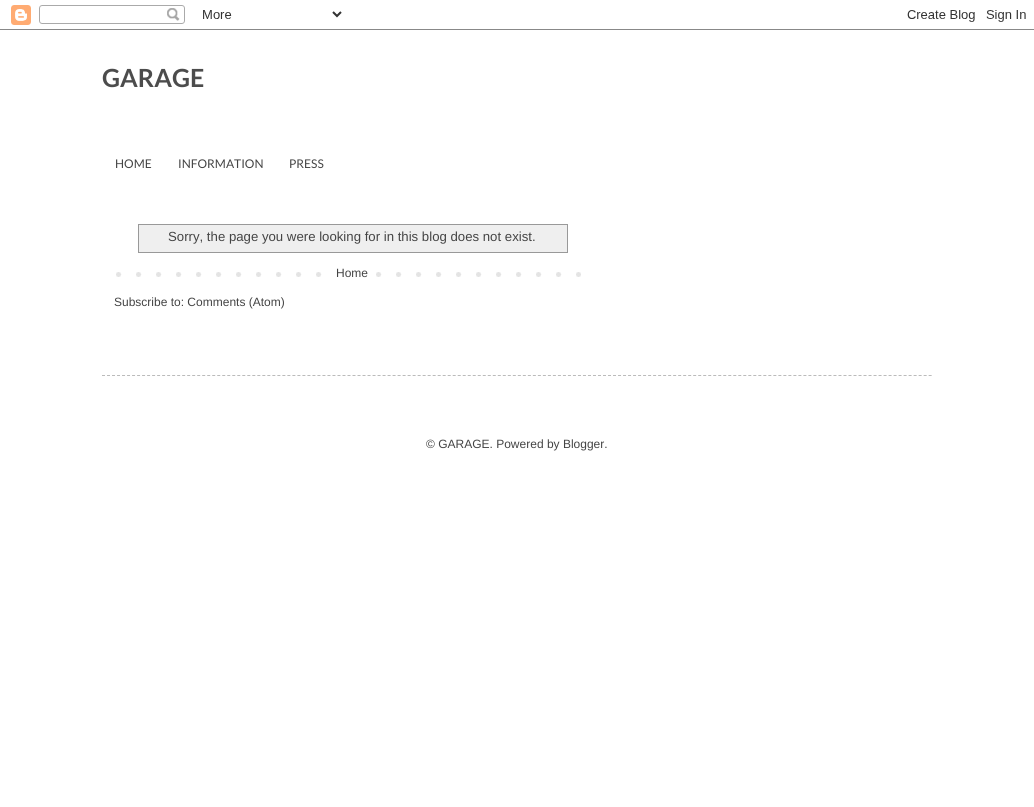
import math
import cairo


def paste(ctx, path, x, y, w, h):
	ctx.save()
	ctx.set_source_surface(cairo.ImageSurface.create_from_png(path), x, y)
	ctx.rectangle(x, y, w, h)
	ctx.fill()
	ctx.restore()

def draw(ctx):
	ctx.set_source_rgb(1, 1, 1)
	ctx.paint()
	paste(ctx, 'media/1.png', 0, 5, 1034, 25)
	ctx.select_font_face('Lato', cairo.FONT_SLANT_NORMAL, cairo.FONT_WEIGHT_BOLD)
	ctx.set_font_size(25)
	ctx.set_source_rgb(0.298, 0.298, 0.298)
	ctx.move_to(102, 87)
	ctx.show_text('GARAGE')
	ctx.select_font_face('Lato')
	ctx.set_font_size(12)
	ctx.set_source_rgb(0.267, 0.267, 0.267)
	for x, y, s in [
		(115, 168, 'HOME'),
		(178, 168, 'INFORMATION'),
		(289, 168, 'PRESS'),
	]:
		ctx.move_to(x, y)
		ctx.show_text(s)
	ctx.rectangle(138.5, 224.5, 429, 28)
	ctx.set_source_rgb(0.6, 0.6, 0.6)
	ctx.set_line_width(1)
	ctx.stroke()
	ctx.set_source_rgb(0.937, 0.937, 0.937)
	ctx.rectangle(139, 225, 428, 27)
	ctx.fill()
	ctx.select_font_face('Liberation Sans')
	ctx.set_font_size(13.2)
	ctx.set_source_rgb(0.267, 0.267, 0.267)
	ctx.move_to(168, 241)
	ctx.show_text('Sorry, the page you were looking for in this blog does not exist.')
	paste(ctx, 'media/2.png', 116, 272, 465, 5)
	ctx.set_source_rgb(1, 1, 1)
	ctx.rectangle(336, 272, 26, 5)
	ctx.fill()
	ctx.set_font_size(12)
	ctx.set_source_rgb(0.267, 0.267, 0.267)
	ctx.move_to(336, 277)
	ctx.show_text('Home')
	ctx.move_to(114, 306)
	ctx.show_text('Subscribe to: Comments (Atom)')
	ctx.new_path()
	ctx.move_to(102, 375.5)
	ctx.line_to(932, 375.5)
	ctx.set_source_rgb(0.733, 0.733, 0.733)
	ctx.set_dash([3, 2.01])
	ctx.stroke()
	ctx.set_source_rgb(0.267, 0.267, 0.267)
	ctx.move_to(426, 448)
	ctx.show_text('© GARAGE. Powered by Blogger.')


surface = cairo.ImageSurface(cairo.FORMAT_RGB24, 1034, 807)
ctx = cairo.Context(surface)
options = cairo.FontOptions()
options.set_hint_metrics(cairo.HINT_METRICS_OFF)
options.set_hint_style(cairo.HINT_STYLE_NONE)
ctx.set_font_options(options)
ctx.set_miter_limit(4)
draw(ctx)
surface.write_to_png('image.png')
